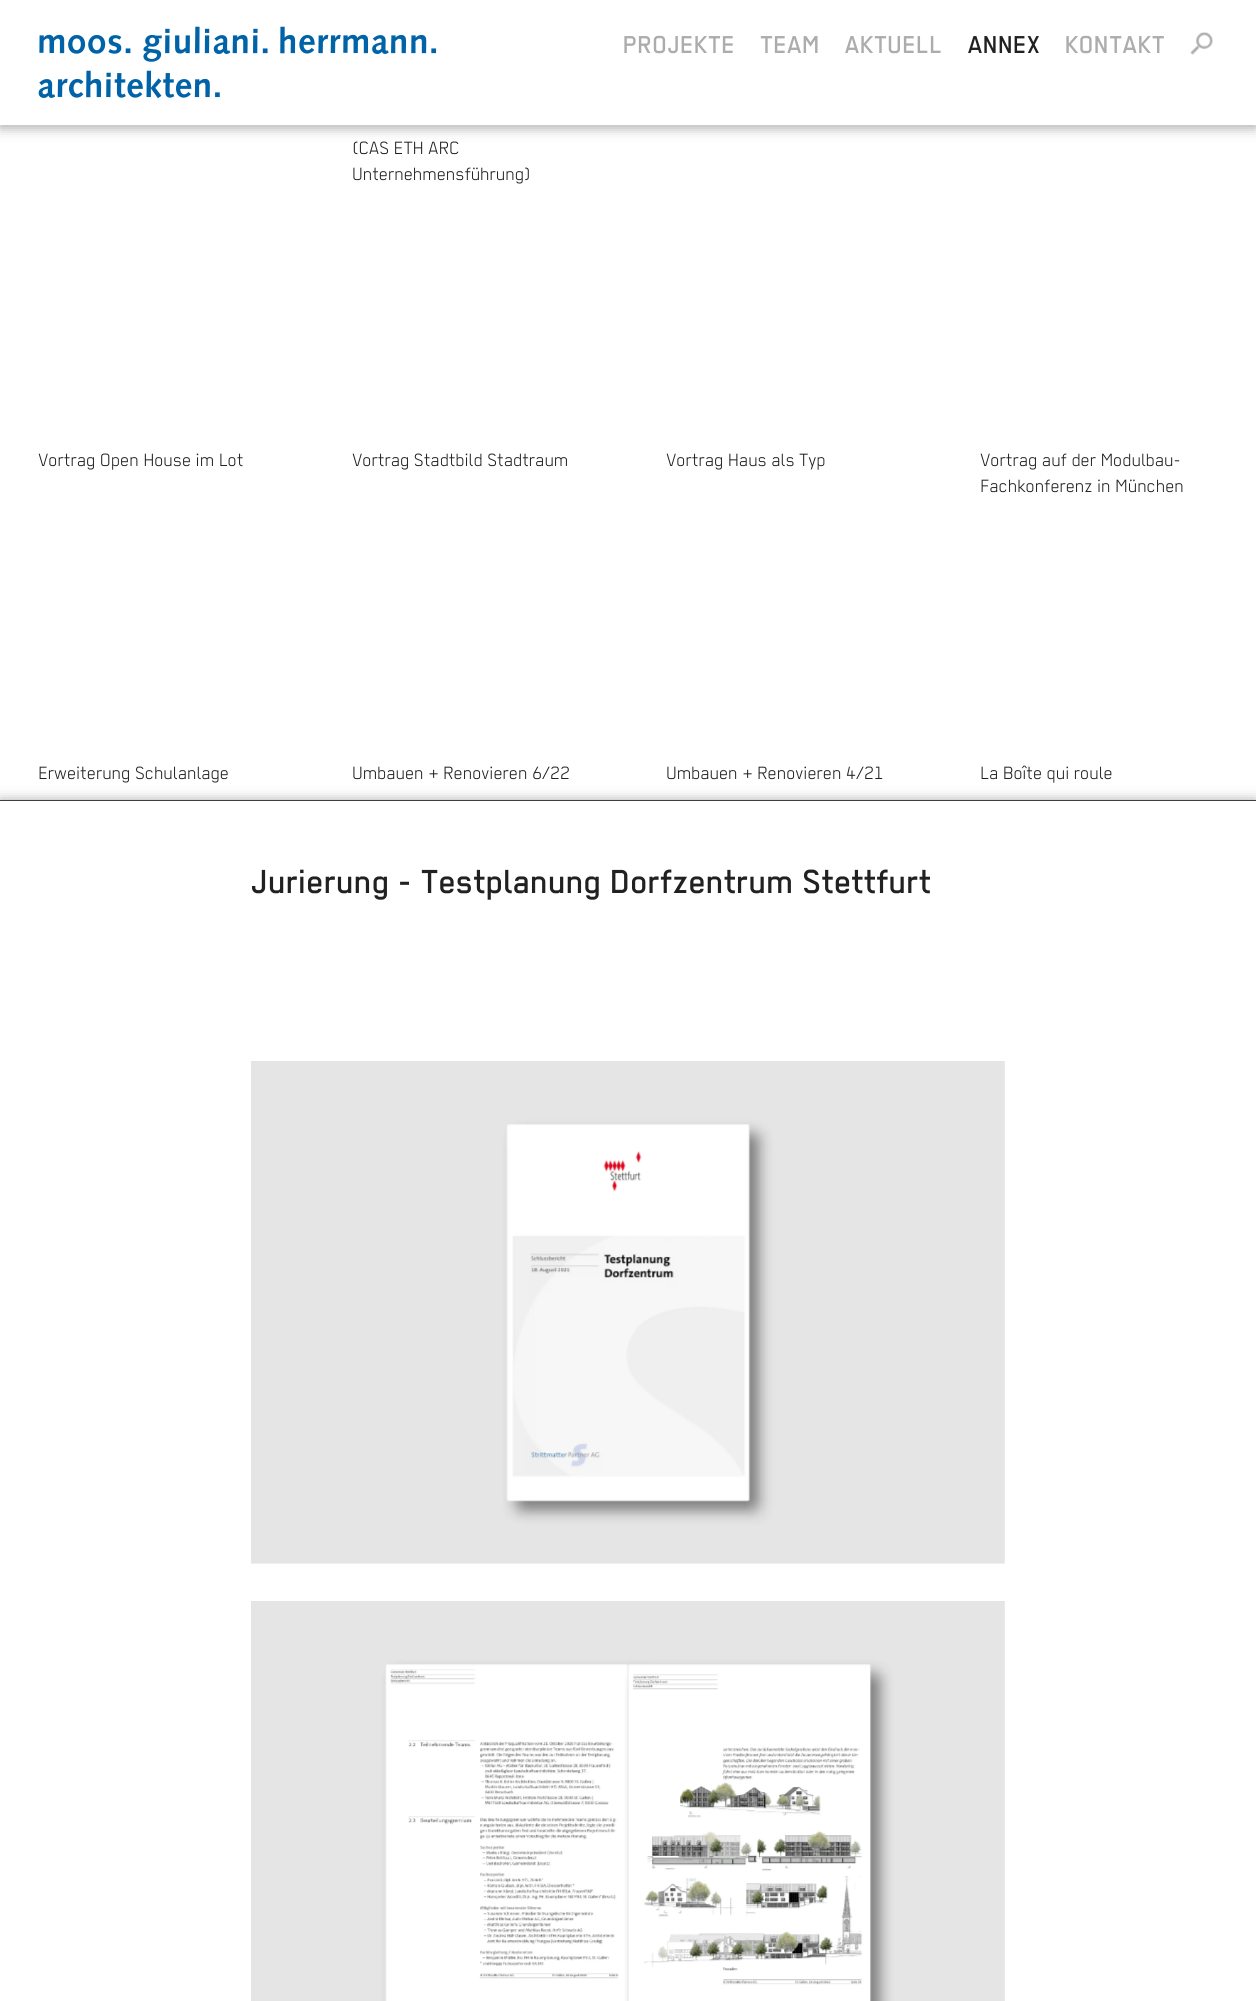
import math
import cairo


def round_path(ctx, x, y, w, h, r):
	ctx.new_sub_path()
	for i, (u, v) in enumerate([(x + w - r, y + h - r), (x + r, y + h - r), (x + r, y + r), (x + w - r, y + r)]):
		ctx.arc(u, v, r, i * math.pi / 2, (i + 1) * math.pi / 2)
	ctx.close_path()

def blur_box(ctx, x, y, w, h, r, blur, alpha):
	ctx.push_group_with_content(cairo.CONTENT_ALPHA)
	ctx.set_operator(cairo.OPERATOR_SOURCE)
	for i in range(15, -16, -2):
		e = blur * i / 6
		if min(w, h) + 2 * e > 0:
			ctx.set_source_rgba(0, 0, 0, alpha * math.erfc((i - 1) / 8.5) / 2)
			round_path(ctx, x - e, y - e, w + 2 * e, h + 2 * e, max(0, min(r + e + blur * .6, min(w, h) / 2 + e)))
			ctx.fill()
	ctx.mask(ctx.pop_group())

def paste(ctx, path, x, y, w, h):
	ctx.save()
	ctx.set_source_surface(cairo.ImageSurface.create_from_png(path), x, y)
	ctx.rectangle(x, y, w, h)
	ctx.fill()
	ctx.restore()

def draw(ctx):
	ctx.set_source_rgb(1, 1, 1)
	ctx.paint()
	ctx.set_source_rgb(0.675, 0.675, 0.675)
	blur_box(ctx, 0, 3, 1256, 125, 0, 6, 1)
	ctx.set_source_rgb(1, 1, 1)
	ctx.rectangle(0, 0, 1256, 125)
	ctx.fill()
	paste(ctx, 'media/1.png', 38, 26, 399, 73)
	ctx.select_font_face('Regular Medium')
	ctx.set_font_size(27.5)
	ctx.set_source_rgb(0.675, 0.675, 0.675)
	for x, y, s in [
		(623, 53, 'PROJEKTE'),
		(760, 53, 'TEAM'),
		(845, 53, 'AKTUELL'),
	]:
		ctx.move_to(x, y)
		ctx.show_text(s)
	ctx.set_source_rgb(0.129, 0.129, 0.129)
	ctx.move_to(968, 53)
	ctx.show_text('ANNEX')
	ctx.set_source_rgb(0.675, 0.675, 0.675)
	ctx.move_to(1065, 53)
	ctx.show_text('KONTAKT')
	paste(ctx, 'media/2.png', 1190, 31, 23, 24)
	ctx.select_font_face('Regular Light')
	ctx.set_font_size(20)
	ctx.set_source_rgb(0.129, 0.129, 0.129)
	for x, y, s in [
		(352, 154, '(CAS ETH ARC'),
		(352, 180, 'Unternehmensführung)'),
		(38, 466, 'Vortrag Open House im Lot'),
		(352, 466, 'Vortrag Stadtbild Stadtraum'),
		(666, 466, 'Vortrag Haus als Typ'),
		(980, 466, 'Vortrag auf der Modulbau-'),
		(980, 492, 'Fachkonferenz in München'),
		(38, 779, 'Erweiterung Schulanlage'),
		(352, 779, 'Umbauen + Renovieren 6/22'),
		(666, 779, 'Umbauen + Renovieren 4/21'),
		(980, 779, 'La Boîte qui roule'),
	]:
		ctx.move_to(x, y)
		ctx.show_text(s)
	ctx.set_source_rgb(0.675, 0.675, 0.675)
	blur_box(ctx, 0, 800, 1256, 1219, 0, 6, 1)
	ctx.set_source_rgb(1, 1, 1)
	ctx.rectangle(0, 801, 1256, 1200)
	ctx.fill()
	ctx.set_source_rgb(0.247, 0.247, 0.247)
	ctx.rectangle(0, 800, 1256, 1)
	ctx.fill()
	ctx.select_font_face('Regular Medium')
	ctx.set_font_size(37.5)
	ctx.set_source_rgb(0.129, 0.129, 0.129)
	ctx.move_to(251, 893)
	ctx.show_text('Jurierung - Testplanung Dorfzentrum Stettfurt')
	paste(ctx, 'media/3.png', 251, 1061, 754, 503)
	paste(ctx, 'media/4.png', 251, 1601, 754, 400)


surface = cairo.ImageSurface(cairo.FORMAT_RGB24, 1256, 2001)
ctx = cairo.Context(surface)
options = cairo.FontOptions()
options.set_hint_metrics(cairo.HINT_METRICS_OFF)
options.set_hint_style(cairo.HINT_STYLE_NONE)
ctx.set_font_options(options)
ctx.set_miter_limit(4)
draw(ctx)
surface.write_to_png('image.png')
